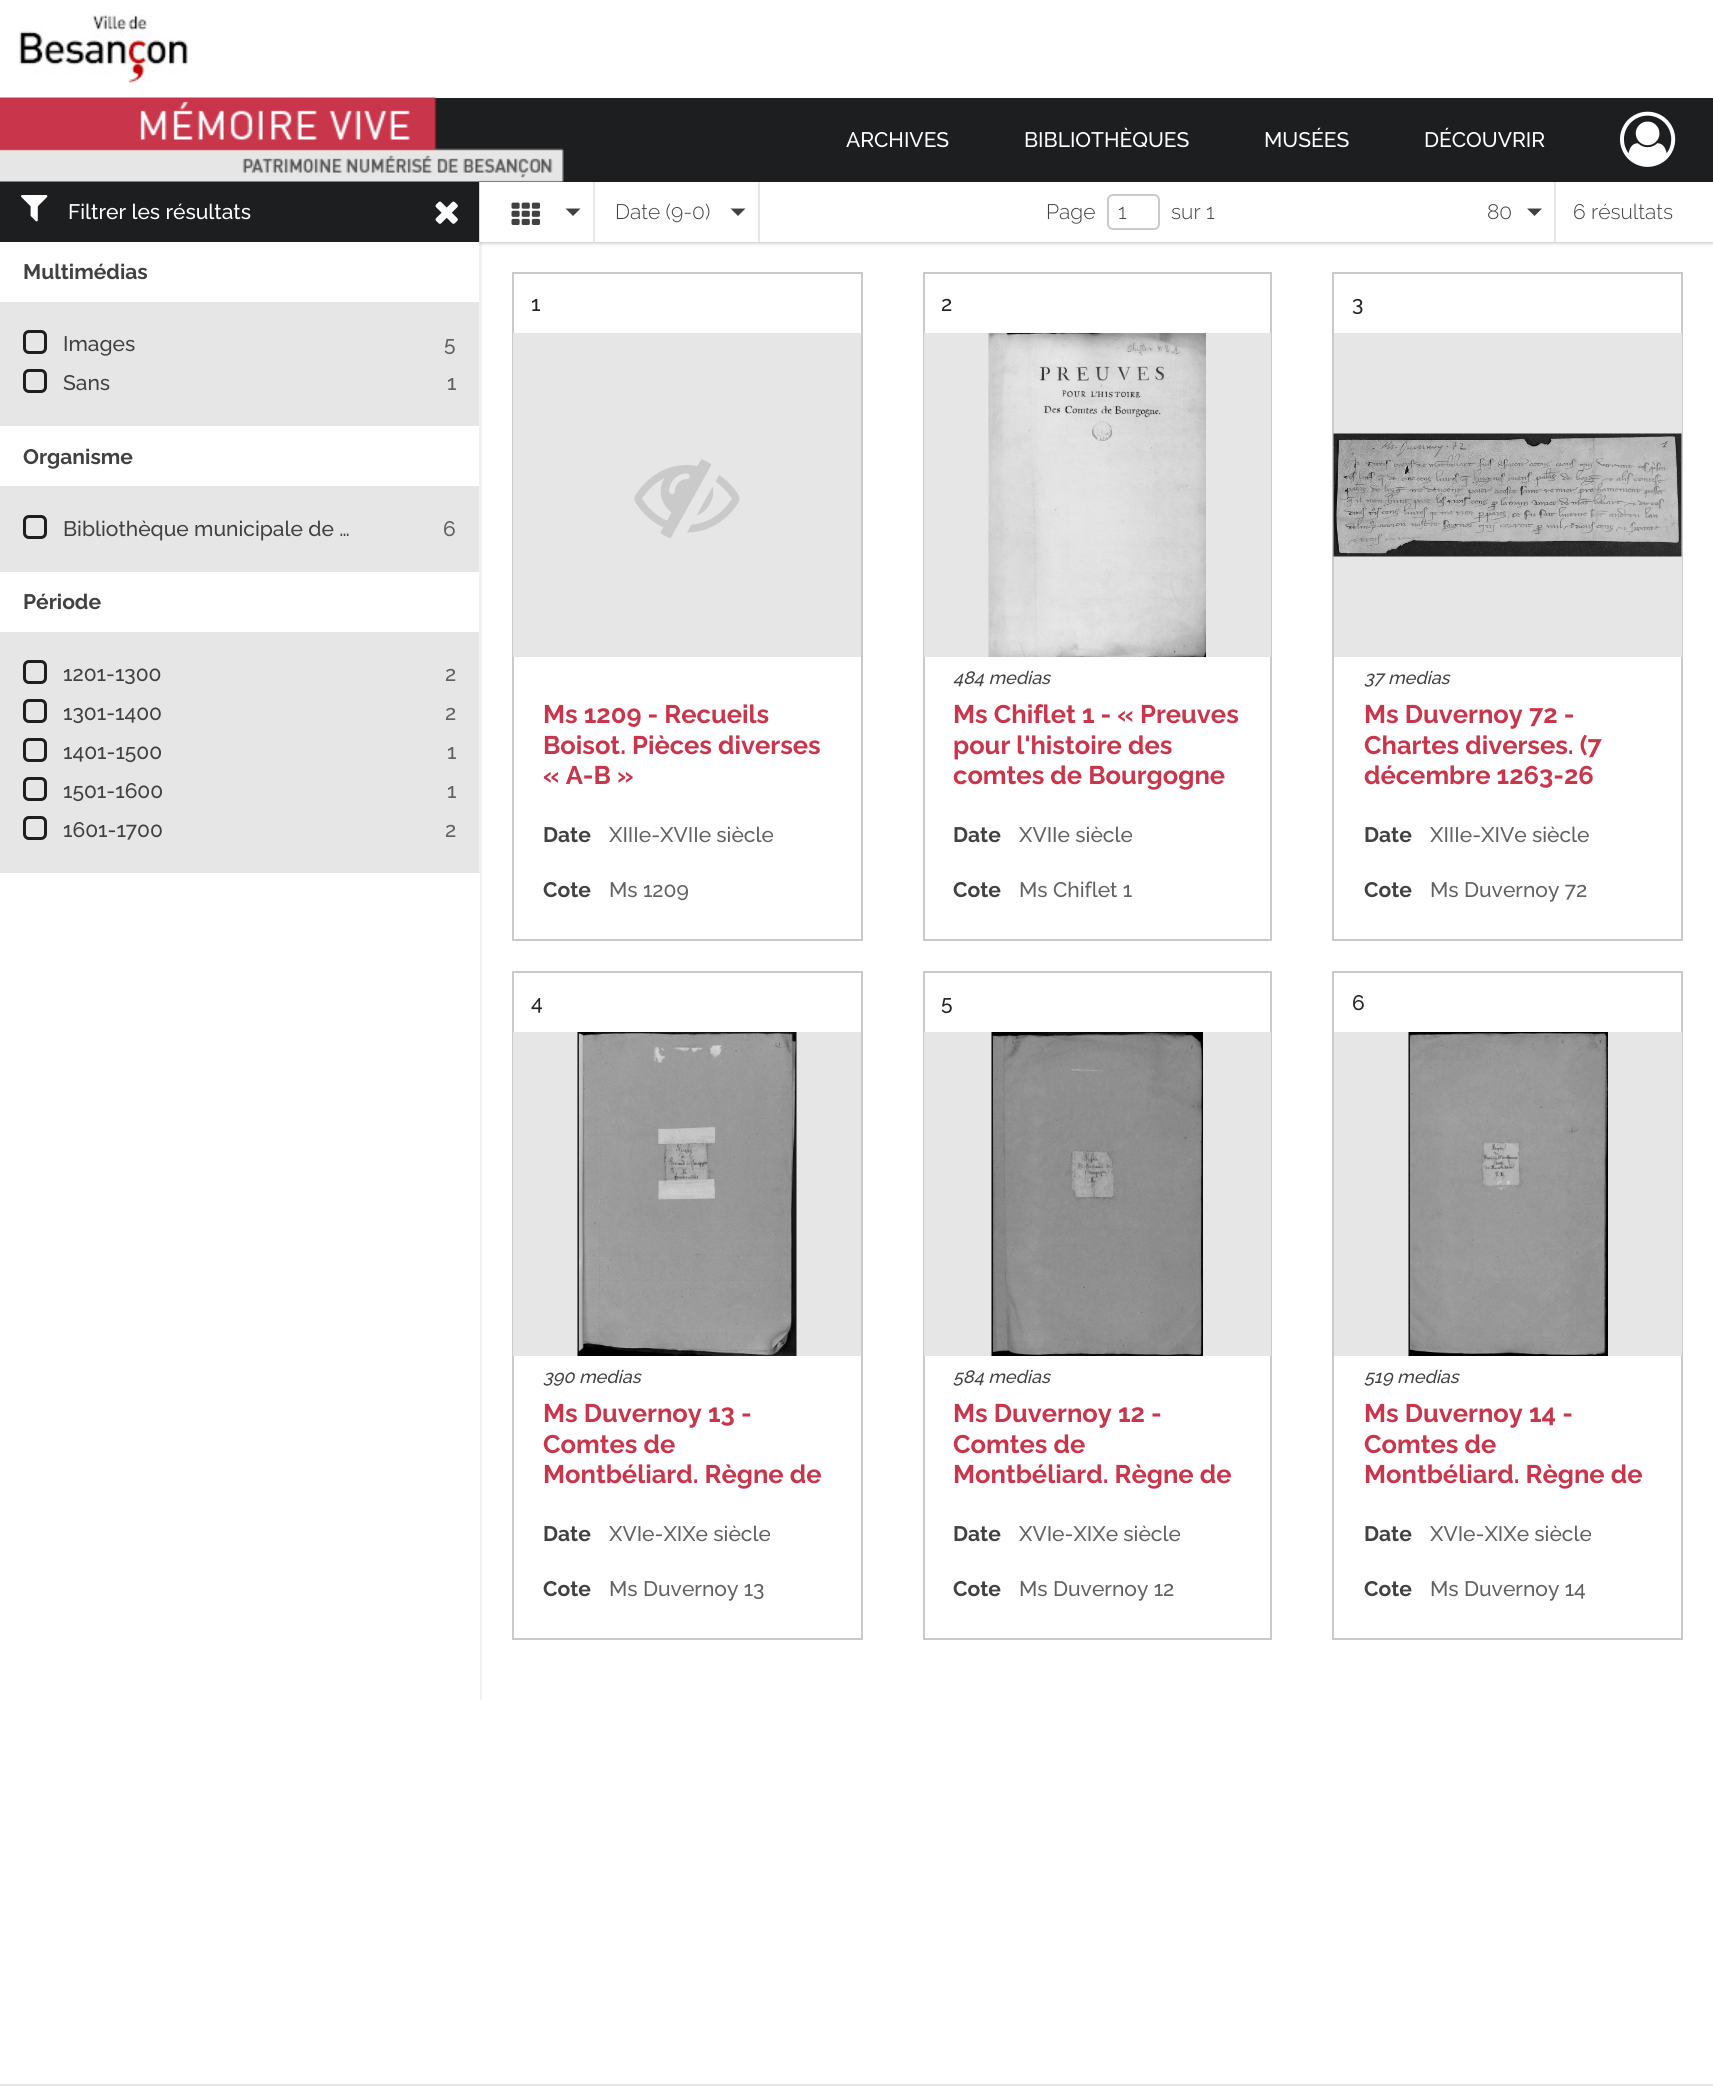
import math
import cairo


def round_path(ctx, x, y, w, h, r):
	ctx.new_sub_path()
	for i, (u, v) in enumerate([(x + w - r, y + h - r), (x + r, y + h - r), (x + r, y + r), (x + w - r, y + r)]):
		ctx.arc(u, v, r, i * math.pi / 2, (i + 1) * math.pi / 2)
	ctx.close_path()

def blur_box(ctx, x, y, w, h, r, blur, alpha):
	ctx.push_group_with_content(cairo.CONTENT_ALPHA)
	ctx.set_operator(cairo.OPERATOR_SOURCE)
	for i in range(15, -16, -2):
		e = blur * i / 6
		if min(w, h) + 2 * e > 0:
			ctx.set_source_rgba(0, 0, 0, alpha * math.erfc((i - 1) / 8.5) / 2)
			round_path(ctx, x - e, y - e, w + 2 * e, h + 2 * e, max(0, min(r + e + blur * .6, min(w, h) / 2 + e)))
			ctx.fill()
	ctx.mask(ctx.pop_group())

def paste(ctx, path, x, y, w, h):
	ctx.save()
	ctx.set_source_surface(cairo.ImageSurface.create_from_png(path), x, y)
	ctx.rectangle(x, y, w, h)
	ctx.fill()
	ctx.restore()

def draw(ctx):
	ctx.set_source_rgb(1, 1, 1)
	ctx.paint()
	paste(ctx, 'media/1.png', 19, 15, 169, 68)
	ctx.set_source_rgb(0.11, 0.118, 0.125)
	ctx.rectangle(0, 98, 1713, 84)
	ctx.fill()
	paste(ctx, 'media/2.png', 0, 97, 564, 85)
	ctx.select_font_face('Raleway Medium')
	ctx.set_font_size(21)
	ctx.set_source_rgb(1, 1, 1)
	for x, y, s in [
		(846, 147, 'ARCHIVES'),
		(1024, 147, 'BIBLIOTHÈQUES'),
		(1264, 147, 'MUSÉES'),
		(1424, 147, 'DÉCOUVRIR'),
	]:
		ctx.move_to(x, y)
		ctx.show_text(s)
	paste(ctx, 'media/3.png', 1620, 111, 56, 56)
	ctx.set_source_rgb(0.902, 0.902, 0.902)
	ctx.rectangle(0, 302, 479, 571)
	ctx.fill()
	ctx.set_source_rgb(0.945, 0.945, 0.945)
	ctx.rectangle(479, 182, 1, 691)
	ctx.fill()
	ctx.set_source_rgb(0.11, 0.118, 0.125)
	ctx.rectangle(0, 182, 479, 60)
	ctx.fill()
	paste(ctx, 'media/4.png', 21, 195, 27, 27)
	ctx.set_source_rgb(1, 1, 1)
	ctx.move_to(68, 219)
	ctx.show_text('Filtrer les résultats')
	paste(ctx, 'media/5.png', 435, 201, 23, 23)
	ctx.select_font_face('Raleway', cairo.FONT_SLANT_NORMAL, cairo.FONT_WEIGHT_BOLD)
	ctx.set_source_rgb(0.255, 0.255, 0.255)
	ctx.move_to(23, 279)
	ctx.show_text('Multimédias')
	round_path(ctx, 24.5, 331.5, 21, 21, 4.5)
	ctx.set_source_rgb(0.11, 0.118, 0.125)
	ctx.set_line_width(3)
	ctx.stroke()
	ctx.select_font_face('Raleway Medium')
	ctx.set_source_rgb(0.255, 0.255, 0.255)
	ctx.move_to(63, 351)
	ctx.show_text('Images')
	ctx.set_source_rgb(0.384, 0.384, 0.384)
	ctx.move_to(444, 351)
	ctx.show_text('5')
	round_path(ctx, 24.5, 370.5, 21, 21, 4.5)
	ctx.set_source_rgb(0.11, 0.118, 0.125)
	ctx.stroke()
	ctx.set_source_rgb(0.255, 0.255, 0.255)
	ctx.move_to(63, 390)
	ctx.show_text('Sans')
	ctx.set_source_rgb(0.384, 0.384, 0.384)
	ctx.move_to(447, 390)
	ctx.show_text('1')
	ctx.set_source_rgb(1, 1, 1)
	ctx.rectangle(0, 426, 479, 60)
	ctx.fill()
	ctx.select_font_face('Raleway', cairo.FONT_SLANT_NORMAL, cairo.FONT_WEIGHT_BOLD)
	ctx.set_source_rgb(0.255, 0.255, 0.255)
	ctx.move_to(23, 464)
	ctx.show_text('Organisme')
	round_path(ctx, 24.5, 516.5, 21, 21, 4.5)
	ctx.set_source_rgb(0.11, 0.118, 0.125)
	ctx.stroke()
	ctx.select_font_face('Raleway Medium')
	ctx.set_source_rgb(0.255, 0.255, 0.255)
	ctx.move_to(63, 536)
	ctx.show_text('Bibliothèque municipale de …')
	ctx.set_source_rgb(0.384, 0.384, 0.384)
	ctx.move_to(443, 536)
	ctx.show_text('6')
	ctx.set_source_rgb(1, 1, 1)
	ctx.rectangle(0, 572, 479, 60)
	ctx.fill()
	ctx.select_font_face('Raleway', cairo.FONT_SLANT_NORMAL, cairo.FONT_WEIGHT_BOLD)
	ctx.set_source_rgb(0.255, 0.255, 0.255)
	ctx.move_to(23, 609)
	ctx.show_text('Période')
	round_path(ctx, 24.5, 661.5, 21, 21, 4.5)
	ctx.set_source_rgb(0.11, 0.118, 0.125)
	ctx.stroke()
	ctx.select_font_face('Raleway Medium')
	ctx.set_source_rgb(0.255, 0.255, 0.255)
	ctx.move_to(63, 681)
	ctx.show_text('1201-1300')
	ctx.set_source_rgb(0.384, 0.384, 0.384)
	ctx.move_to(445, 681)
	ctx.show_text('2')
	round_path(ctx, 24.5, 700.5, 21, 21, 4.5)
	ctx.set_source_rgb(0.11, 0.118, 0.125)
	ctx.stroke()
	ctx.set_source_rgb(0.255, 0.255, 0.255)
	ctx.move_to(63, 720)
	ctx.show_text('1301-1400')
	ctx.set_source_rgb(0.384, 0.384, 0.384)
	ctx.move_to(445, 720)
	ctx.show_text('2')
	round_path(ctx, 24.5, 739.5, 21, 21, 4.5)
	ctx.set_source_rgb(0.11, 0.118, 0.125)
	ctx.stroke()
	ctx.set_source_rgb(0.255, 0.255, 0.255)
	ctx.move_to(63, 759)
	ctx.show_text('1401-1500')
	ctx.set_source_rgb(0.384, 0.384, 0.384)
	ctx.move_to(447, 759)
	ctx.show_text('1')
	round_path(ctx, 24.5, 778.5, 21, 21, 4.5)
	ctx.set_source_rgb(0.11, 0.118, 0.125)
	ctx.stroke()
	ctx.set_source_rgb(0.255, 0.255, 0.255)
	ctx.move_to(63, 798)
	ctx.show_text('1501-1600')
	ctx.set_source_rgb(0.384, 0.384, 0.384)
	ctx.move_to(447, 798)
	ctx.show_text('1')
	round_path(ctx, 24.5, 817.5, 21, 21, 4.5)
	ctx.set_source_rgb(0.11, 0.118, 0.125)
	ctx.stroke()
	ctx.set_source_rgb(0.255, 0.255, 0.255)
	ctx.move_to(63, 837)
	ctx.show_text('1601-1700')
	ctx.set_source_rgb(0.384, 0.384, 0.384)
	ctx.move_to(445, 837)
	ctx.show_text('2')
	ctx.set_source_rgb(0.945, 0.945, 0.945)
	ctx.rectangle(480, 242, 2, 1458)
	ctx.fill()
	ctx.set_source_rgb(0, 0, 0)
	blur_box(ctx, 480, 183, 1233, 60, 0, 2, 0.25)
	ctx.set_source_rgb(1, 1, 1)
	ctx.rectangle(480, 182, 1233, 60)
	ctx.fill()
	ctx.set_source_rgb(0.902, 0.902, 0.902)
	ctx.rectangle(593, 182, 2, 60)
	ctx.fill()
	paste(ctx, 'media/6.png', 511, 202, 29, 23)
	ctx.set_source_rgb(0.255, 0.255, 0.255)
	ctx.new_path()
	ctx.move_to(565.5, 208.5)
	ctx.line_to(580.5, 208.5)
	ctx.line_to(573, 216)
	ctx.close_path()
	ctx.fill()
	ctx.set_source_rgb(0.902, 0.902, 0.902)
	ctx.rectangle(758, 182, 2, 60)
	ctx.fill()
	ctx.select_font_face('Raleway Light')
	ctx.set_source_rgb(0.255, 0.255, 0.255)
	ctx.move_to(615, 219)
	ctx.show_text('Date (9-0)')
	ctx.new_path()
	ctx.move_to(730.5, 208.5)
	ctx.line_to(745.5, 208.5)
	ctx.line_to(738, 216)
	ctx.close_path()
	ctx.fill()
	ctx.move_to(1046, 219)
	ctx.show_text('Page')
	round_path(ctx, 1108, 195, 51, 34, 5)
	ctx.set_source_rgb(0.792, 0.792, 0.792)
	ctx.set_line_width(2)
	ctx.stroke()
	ctx.set_source_rgb(0.255, 0.255, 0.255)
	ctx.move_to(1118, 219)
	ctx.show_text('1')
	ctx.move_to(1171, 219)
	ctx.show_text('sur 1')
	ctx.set_source_rgb(0.902, 0.902, 0.902)
	ctx.rectangle(1554, 182, 2, 60)
	ctx.fill()
	ctx.set_source_rgb(0.255, 0.255, 0.255)
	ctx.move_to(1487, 219)
	ctx.show_text('80')
	ctx.new_path()
	ctx.move_to(1527, 208.5)
	ctx.line_to(1542, 208.5)
	ctx.line_to(1534.5, 216)
	ctx.close_path()
	ctx.fill()
	ctx.move_to(1573, 219)
	ctx.show_text('6 résultats')
	ctx.rectangle(513, 273, 349, 667)
	ctx.set_source_rgb(0.792, 0.792, 0.792)
	ctx.stroke()
	ctx.select_font_face('Raleway Medium')
	ctx.set_source_rgb(0.129, 0.145, 0.161)
	ctx.move_to(531, 311)
	ctx.show_text('1')
	ctx.set_source_rgb(0.902, 0.902, 0.902)
	ctx.rectangle(513, 333, 348, 324)
	ctx.fill()
	paste(ctx, 'media/7.png', 634, 459, 106, 79)
	ctx.select_font_face('Raleway', cairo.FONT_SLANT_NORMAL, cairo.FONT_WEIGHT_BOLD)
	ctx.set_font_size(25.5)
	ctx.set_source_rgb(0.788, 0.212, 0.294)
	for x, y, s in [
		(543, 723, 'Ms 1209 - Recueils'),
		(543, 754, 'Boisot. Pièces diverses'),
		(543, 784, '« A-B »'),
	]:
		ctx.move_to(x, y)
		ctx.show_text(s)
	ctx.set_font_size(21)
	ctx.set_source_rgb(0.255, 0.255, 0.255)
	ctx.move_to(543, 842)
	ctx.show_text('Date')
	ctx.select_font_face('Raleway Medium')
	ctx.set_source_rgb(0.384, 0.384, 0.384)
	ctx.move_to(609, 842)
	ctx.show_text('XIIIe-XVIIe siècle')
	ctx.select_font_face('Raleway', cairo.FONT_SLANT_NORMAL, cairo.FONT_WEIGHT_BOLD)
	ctx.set_source_rgb(0.255, 0.255, 0.255)
	ctx.move_to(543, 897)
	ctx.show_text('Cote')
	ctx.select_font_face('Raleway Medium')
	ctx.set_source_rgb(0.384, 0.384, 0.384)
	ctx.move_to(609, 897)
	ctx.show_text('Ms 1209')
	ctx.rectangle(924, 273, 347, 667)
	ctx.set_source_rgb(0.792, 0.792, 0.792)
	ctx.stroke()
	ctx.set_source_rgb(0.129, 0.145, 0.161)
	ctx.move_to(941, 311)
	ctx.show_text('2')
	ctx.set_source_rgb(0.902, 0.902, 0.902)
	ctx.rectangle(924, 333, 347, 324)
	ctx.fill()
	paste(ctx, 'media/8.png', 988, 333, 218, 324)
	ctx.select_font_face('Raleway Medium', cairo.FONT_SLANT_ITALIC)
	ctx.set_font_size(18)
	ctx.set_source_rgb(0.255, 0.255, 0.255)
	ctx.move_to(953, 684)
	ctx.show_text('484 medias')
	ctx.select_font_face('Raleway', cairo.FONT_SLANT_NORMAL, cairo.FONT_WEIGHT_BOLD)
	ctx.set_font_size(25.5)
	ctx.set_source_rgb(0.788, 0.212, 0.294)
	for x, y, s in [
		(953, 723, 'Ms Chiflet 1 - « Preuves'),
		(953, 754, 'pour l\'histoire des'),
		(953, 784, 'comtes de Bourgogne'),
	]:
		ctx.move_to(x, y)
		ctx.show_text(s)
	ctx.set_font_size(21)
	ctx.set_source_rgb(0.255, 0.255, 0.255)
	ctx.move_to(953, 842)
	ctx.show_text('Date')
	ctx.select_font_face('Raleway Medium')
	ctx.set_source_rgb(0.384, 0.384, 0.384)
	ctx.move_to(1019, 842)
	ctx.show_text('XVIIe siècle')
	ctx.select_font_face('Raleway', cairo.FONT_SLANT_NORMAL, cairo.FONT_WEIGHT_BOLD)
	ctx.set_source_rgb(0.255, 0.255, 0.255)
	ctx.move_to(953, 897)
	ctx.show_text('Cote')
	ctx.select_font_face('Raleway Medium')
	ctx.set_source_rgb(0.384, 0.384, 0.384)
	ctx.move_to(1019, 897)
	ctx.show_text('Ms Chiflet 1')
	ctx.rectangle(1333, 273, 349, 667)
	ctx.set_source_rgb(0.792, 0.792, 0.792)
	ctx.stroke()
	ctx.set_source_rgb(0.129, 0.145, 0.161)
	ctx.move_to(1352, 311)
	ctx.show_text('3')
	ctx.set_source_rgb(0.902, 0.902, 0.902)
	ctx.rectangle(1334, 333, 348, 324)
	ctx.fill()
	paste(ctx, 'media/9.png', 1333, 433, 349, 124)
	ctx.select_font_face('Raleway Medium', cairo.FONT_SLANT_ITALIC)
	ctx.set_font_size(18)
	ctx.set_source_rgb(0.255, 0.255, 0.255)
	ctx.move_to(1364, 684)
	ctx.show_text('37 medias')
	ctx.select_font_face('Raleway', cairo.FONT_SLANT_NORMAL, cairo.FONT_WEIGHT_BOLD)
	ctx.set_font_size(25.5)
	ctx.set_source_rgb(0.788, 0.212, 0.294)
	for x, y, s in [
		(1364, 723, 'Ms Duvernoy 72 -'),
		(1364, 754, 'Chartes diverses. (7'),
		(1364, 784, 'décembre 1263-26'),
	]:
		ctx.move_to(x, y)
		ctx.show_text(s)
	ctx.set_font_size(21)
	ctx.set_source_rgb(0.255, 0.255, 0.255)
	ctx.move_to(1364, 842)
	ctx.show_text('Date')
	ctx.select_font_face('Raleway Medium')
	ctx.set_source_rgb(0.384, 0.384, 0.384)
	ctx.move_to(1430, 842)
	ctx.show_text('XIIIe-XIVe siècle')
	ctx.select_font_face('Raleway', cairo.FONT_SLANT_NORMAL, cairo.FONT_WEIGHT_BOLD)
	ctx.set_source_rgb(0.255, 0.255, 0.255)
	ctx.move_to(1364, 897)
	ctx.show_text('Cote')
	ctx.select_font_face('Raleway Medium')
	ctx.set_source_rgb(0.384, 0.384, 0.384)
	ctx.move_to(1430, 897)
	ctx.show_text('Ms Duvernoy 72')
	ctx.rectangle(513, 972, 349, 667)
	ctx.set_source_rgb(0.792, 0.792, 0.792)
	ctx.stroke()
	ctx.set_source_rgb(0.129, 0.145, 0.161)
	ctx.move_to(531, 1010)
	ctx.show_text('4')
	ctx.set_source_rgb(0.902, 0.902, 0.902)
	ctx.rectangle(513, 1032, 348, 324)
	ctx.fill()
	paste(ctx, 'media/10.png', 577, 1032, 220, 324)
	ctx.select_font_face('Raleway Medium', cairo.FONT_SLANT_ITALIC)
	ctx.set_font_size(18)
	ctx.set_source_rgb(0.255, 0.255, 0.255)
	ctx.move_to(543, 1383)
	ctx.show_text('390 medias')
	ctx.select_font_face('Raleway', cairo.FONT_SLANT_NORMAL, cairo.FONT_WEIGHT_BOLD)
	ctx.set_font_size(25.5)
	ctx.set_source_rgb(0.788, 0.212, 0.294)
	for x, y, s in [
		(543, 1422, 'Ms Duvernoy 13 -'),
		(543, 1453, 'Comtes de'),
		(543, 1483, 'Montbéliard. Règne de'),
	]:
		ctx.move_to(x, y)
		ctx.show_text(s)
	ctx.set_font_size(21)
	ctx.set_source_rgb(0.255, 0.255, 0.255)
	ctx.move_to(543, 1541)
	ctx.show_text('Date')
	ctx.select_font_face('Raleway Medium')
	ctx.set_source_rgb(0.384, 0.384, 0.384)
	ctx.move_to(609, 1541)
	ctx.show_text('XVIe-XIXe siècle')
	ctx.select_font_face('Raleway', cairo.FONT_SLANT_NORMAL, cairo.FONT_WEIGHT_BOLD)
	ctx.set_source_rgb(0.255, 0.255, 0.255)
	ctx.move_to(543, 1596)
	ctx.show_text('Cote')
	ctx.select_font_face('Raleway Medium')
	ctx.set_source_rgb(0.384, 0.384, 0.384)
	ctx.move_to(609, 1596)
	ctx.show_text('Ms Duvernoy 13')
	ctx.rectangle(924, 972, 347, 667)
	ctx.set_source_rgb(0.792, 0.792, 0.792)
	ctx.stroke()
	ctx.set_source_rgb(0.129, 0.145, 0.161)
	ctx.move_to(941, 1010)
	ctx.show_text('5')
	ctx.set_source_rgb(0.902, 0.902, 0.902)
	ctx.rectangle(924, 1032, 347, 324)
	ctx.fill()
	paste(ctx, 'media/11.png', 991, 1032, 212, 324)
	ctx.select_font_face('Raleway Medium', cairo.FONT_SLANT_ITALIC)
	ctx.set_font_size(18)
	ctx.set_source_rgb(0.255, 0.255, 0.255)
	ctx.move_to(953, 1383)
	ctx.show_text('584 medias')
	ctx.select_font_face('Raleway', cairo.FONT_SLANT_NORMAL, cairo.FONT_WEIGHT_BOLD)
	ctx.set_font_size(25.5)
	ctx.set_source_rgb(0.788, 0.212, 0.294)
	for x, y, s in [
		(953, 1422, 'Ms Duvernoy 12 -'),
		(953, 1453, 'Comtes de'),
		(953, 1483, 'Montbéliard. Règne de'),
	]:
		ctx.move_to(x, y)
		ctx.show_text(s)
	ctx.set_font_size(21)
	ctx.set_source_rgb(0.255, 0.255, 0.255)
	ctx.move_to(953, 1541)
	ctx.show_text('Date')
	ctx.select_font_face('Raleway Medium')
	ctx.set_source_rgb(0.384, 0.384, 0.384)
	ctx.move_to(1019, 1541)
	ctx.show_text('XVIe-XIXe siècle')
	ctx.select_font_face('Raleway', cairo.FONT_SLANT_NORMAL, cairo.FONT_WEIGHT_BOLD)
	ctx.set_source_rgb(0.255, 0.255, 0.255)
	ctx.move_to(953, 1596)
	ctx.show_text('Cote')
	ctx.select_font_face('Raleway Medium')
	ctx.set_source_rgb(0.384, 0.384, 0.384)
	ctx.move_to(1019, 1596)
	ctx.show_text('Ms Duvernoy 12')
	ctx.rectangle(1333, 972, 349, 667)
	ctx.set_source_rgb(0.792, 0.792, 0.792)
	ctx.stroke()
	ctx.set_source_rgb(0.129, 0.145, 0.161)
	ctx.move_to(1352, 1010)
	ctx.show_text('6')
	ctx.set_source_rgb(0.902, 0.902, 0.902)
	ctx.rectangle(1334, 1032, 348, 324)
	ctx.fill()
	paste(ctx, 'media/12.png', 1408, 1032, 200, 324)
	ctx.select_font_face('Raleway Medium', cairo.FONT_SLANT_ITALIC)
	ctx.set_font_size(18)
	ctx.set_source_rgb(0.255, 0.255, 0.255)
	ctx.move_to(1364, 1383)
	ctx.show_text('519 medias')
	ctx.select_font_face('Raleway', cairo.FONT_SLANT_NORMAL, cairo.FONT_WEIGHT_BOLD)
	ctx.set_font_size(25.5)
	ctx.set_source_rgb(0.788, 0.212, 0.294)
	for x, y, s in [
		(1364, 1422, 'Ms Duvernoy 14 -'),
		(1364, 1453, 'Comtes de'),
		(1364, 1483, 'Montbéliard. Règne de'),
	]:
		ctx.move_to(x, y)
		ctx.show_text(s)
	ctx.set_font_size(21)
	ctx.set_source_rgb(0.255, 0.255, 0.255)
	ctx.move_to(1364, 1541)
	ctx.show_text('Date')
	ctx.select_font_face('Raleway Medium')
	ctx.set_source_rgb(0.384, 0.384, 0.384)
	ctx.move_to(1430, 1541)
	ctx.show_text('XVIe-XIXe siècle')
	ctx.select_font_face('Raleway', cairo.FONT_SLANT_NORMAL, cairo.FONT_WEIGHT_BOLD)
	ctx.set_source_rgb(0.255, 0.255, 0.255)
	ctx.move_to(1364, 1596)
	ctx.show_text('Cote')
	ctx.select_font_face('Raleway Medium')
	ctx.set_source_rgb(0.384, 0.384, 0.384)
	ctx.move_to(1430, 1596)
	ctx.show_text('Ms Duvernoy 14')
	ctx.set_source_rgb(0.902, 0.902, 0.902)
	ctx.rectangle(0, 2084, 1713, 2)
	ctx.fill()


surface = cairo.ImageSurface(cairo.FORMAT_RGB24, 1713, 2097)
ctx = cairo.Context(surface)
options = cairo.FontOptions()
options.set_hint_metrics(cairo.HINT_METRICS_OFF)
options.set_hint_style(cairo.HINT_STYLE_NONE)
ctx.set_font_options(options)
ctx.set_miter_limit(4)
draw(ctx)
surface.write_to_png('image.png')
